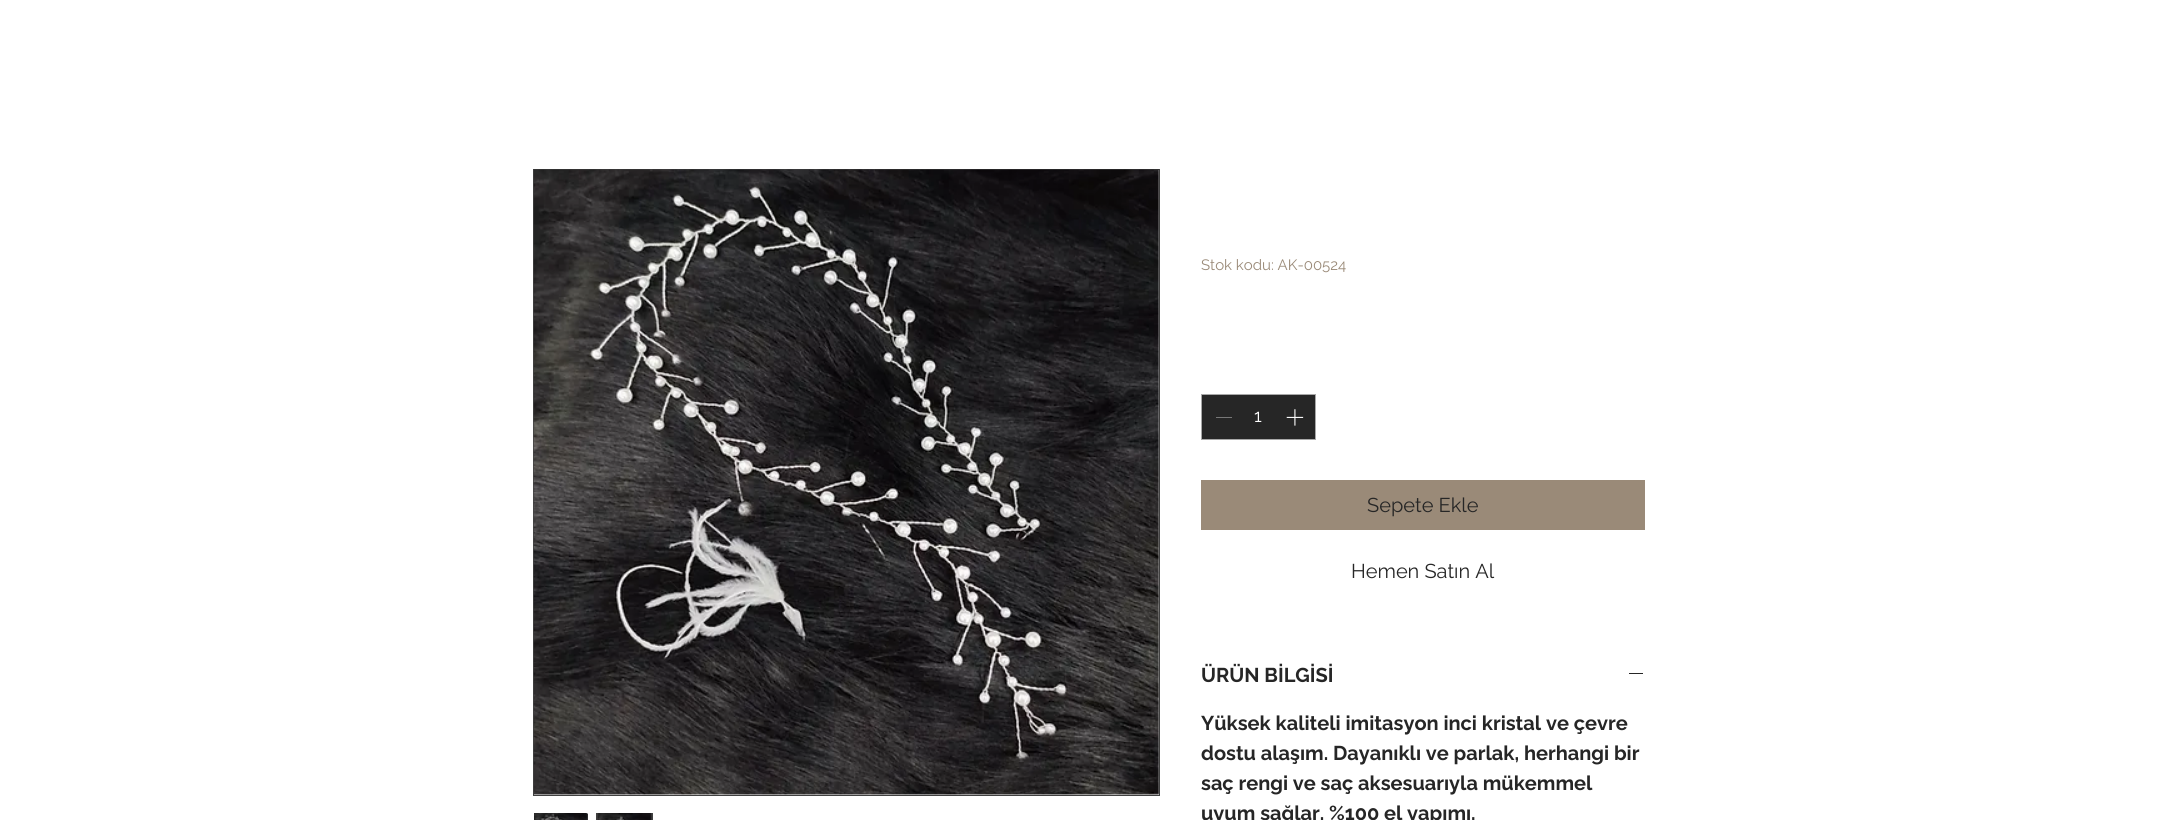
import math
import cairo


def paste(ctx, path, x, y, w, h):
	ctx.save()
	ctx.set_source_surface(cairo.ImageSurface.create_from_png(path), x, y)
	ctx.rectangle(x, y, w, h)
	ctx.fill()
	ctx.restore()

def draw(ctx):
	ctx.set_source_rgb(1, 1, 1)
	ctx.paint()
	ctx.rectangle(533.5, 169.5, 626, 626)
	ctx.set_source_rgb(0.255, 0.255, 0.255)
	ctx.set_line_width(1)
	ctx.stroke()
	paste(ctx, 'media/1.png', 533, 169, 626, 626)
	ctx.rectangle(586, 814, 3, 6)
	ctx.fill()
	ctx.rectangle(533.5, 813.5, 55, 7)
	ctx.set_source_rgb(1, 1, 1)
	ctx.stroke()
	paste(ctx, 'media/2.png', 534, 813, 54, 7)
	ctx.set_source_rgb(0.255, 0.255, 0.255)
	ctx.rectangle(596, 813, 57, 7)
	ctx.fill()
	paste(ctx, 'media/3.png', 597, 813, 55, 7)
	ctx.select_font_face('Raleway')
	ctx.set_font_size(15)
	ctx.set_source_rgb(0.604, 0.541, 0.471)
	ctx.move_to(1201, 270)
	ctx.show_text('Stok kodu: AK-00524')
	ctx.set_source_rgb(0.149, 0.149, 0.149)
	ctx.rectangle(1201.5, 394.5, 114, 45)
	ctx.fill_preserve()
	ctx.set_source_rgb(0.659, 0.659, 0.659)
	ctx.stroke()
	ctx.set_source_rgb(0.467, 0.467, 0.467)
	ctx.rectangle(1216, 417, 16, 1)
	ctx.fill()
	ctx.set_font_size(18)
	ctx.set_source_rgb(1, 1, 1)
	ctx.move_to(1254, 422)
	ctx.show_text('1')
	paste(ctx, 'media/4.png', 1286, 409, 18, 17)
	ctx.set_source_rgb(0.604, 0.541, 0.471)
	ctx.rectangle(1201, 480, 444, 50)
	ctx.fill()
	ctx.set_font_size(20)
	ctx.set_source_rgb(0.149, 0.149, 0.149)
	ctx.move_to(1367, 512)
	ctx.show_text('Sepete Ekle')
	ctx.move_to(1351, 578)
	ctx.show_text('Hemen Satın Al')
	ctx.select_font_face('Raleway', cairo.FONT_SLANT_NORMAL, cairo.FONT_WEIGHT_BOLD)
	ctx.move_to(1201, 682)
	ctx.show_text('ÜRÜN BİLGİSİ')
	ctx.rectangle(1629, 673, 14, 1)
	ctx.fill()
	for x, y, s in [
		(1201, 730, 'Yüksek kaliteli imitasyon inci kristal ve çevre'),
		(1201, 760, 'dostu alaşım. Dayanıklı ve parlak, herhangi bir'),
		(1201, 790, 'saç rengi ve saç aksesuarıyla mükemmel'),
		(1201, 820, 'uyum sağlar. %100 el yapımı.'),
	]:
		ctx.move_to(x, y)
		ctx.show_text(s)


surface = cairo.ImageSurface(cairo.FORMAT_RGB24, 2176, 820)
ctx = cairo.Context(surface)
options = cairo.FontOptions()
options.set_hint_metrics(cairo.HINT_METRICS_OFF)
options.set_hint_style(cairo.HINT_STYLE_NONE)
ctx.set_font_options(options)
ctx.set_miter_limit(4)
draw(ctx)
surface.write_to_png('image.png')
